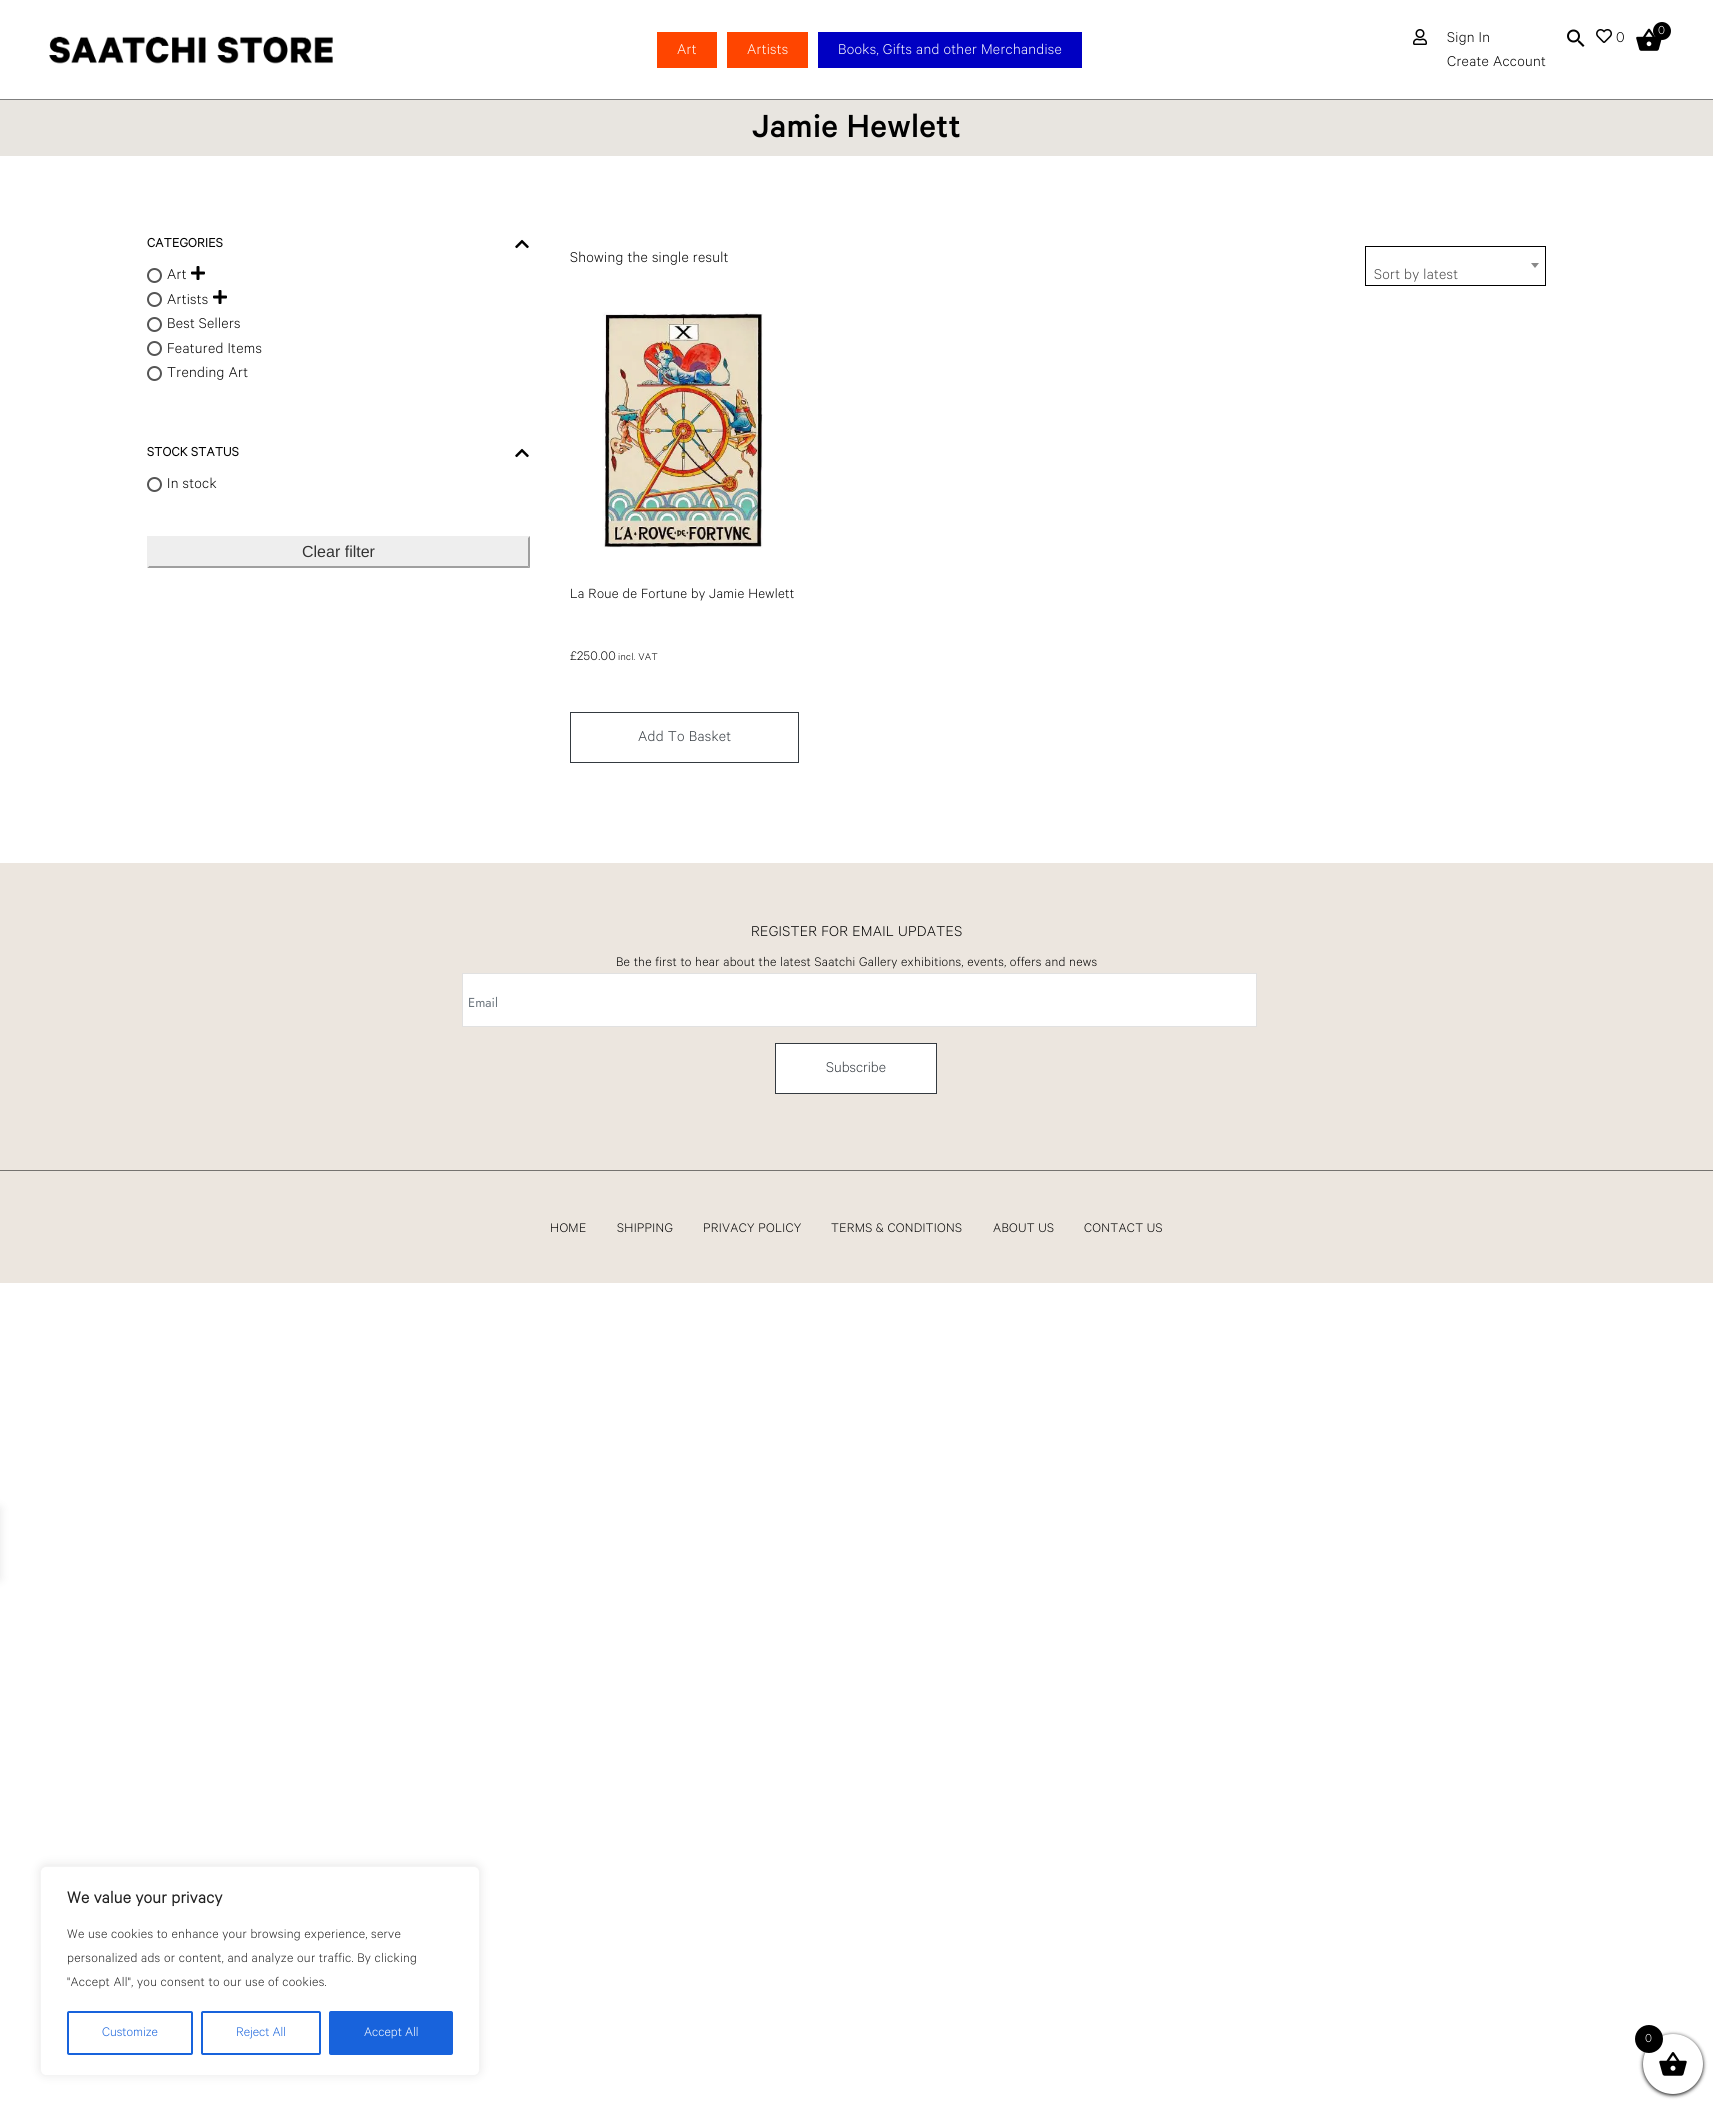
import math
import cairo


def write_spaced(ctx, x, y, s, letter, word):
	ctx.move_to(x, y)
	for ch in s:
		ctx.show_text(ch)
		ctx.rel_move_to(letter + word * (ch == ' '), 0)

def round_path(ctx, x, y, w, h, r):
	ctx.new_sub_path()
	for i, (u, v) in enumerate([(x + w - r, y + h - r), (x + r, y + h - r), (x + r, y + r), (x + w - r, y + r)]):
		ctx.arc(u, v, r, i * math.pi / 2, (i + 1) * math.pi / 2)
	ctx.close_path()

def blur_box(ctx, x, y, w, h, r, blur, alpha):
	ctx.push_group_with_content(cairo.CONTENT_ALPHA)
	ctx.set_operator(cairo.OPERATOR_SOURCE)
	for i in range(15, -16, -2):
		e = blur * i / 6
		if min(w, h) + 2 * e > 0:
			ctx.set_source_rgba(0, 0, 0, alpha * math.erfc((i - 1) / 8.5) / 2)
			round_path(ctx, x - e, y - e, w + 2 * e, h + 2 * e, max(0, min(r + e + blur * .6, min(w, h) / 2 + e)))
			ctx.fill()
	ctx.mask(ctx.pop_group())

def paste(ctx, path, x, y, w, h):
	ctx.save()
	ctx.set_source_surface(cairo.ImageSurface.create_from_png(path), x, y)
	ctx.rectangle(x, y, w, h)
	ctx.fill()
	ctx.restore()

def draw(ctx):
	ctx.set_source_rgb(1, 1, 1)
	ctx.paint()
	ctx.set_source_rgb(0.498, 0.498, 0.498)
	ctx.rectangle(0, 99, 1713, 1)
	ctx.fill()
	paste(ctx, 'media/1.png', 49, 36, 284, 28)
	ctx.set_source_rgb(1, 0.271, 0)
	ctx.rectangle(657, 32, 60, 36)
	ctx.fill()
	ctx.select_font_face('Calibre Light')
	ctx.set_font_size(16)
	ctx.set_source_rgb(1, 1, 1)
	write_spaced(ctx, 677, 54, 'Art', 0.3, 0)
	ctx.set_source_rgb(1, 0.271, 0)
	ctx.rectangle(727, 32, 81, 36)
	ctx.fill()
	ctx.set_source_rgb(1, 1, 1)
	write_spaced(ctx, 747, 54, 'Artists', 0.3, 0)
	ctx.set_source_rgb(0, 0, 0.761)
	ctx.rectangle(818, 32, 264, 36)
	ctx.fill()
	ctx.set_source_rgb(1, 1, 1)
	write_spaced(ctx, 838, 54, 'Books, Gifts and other Merchandise', 0.3, 0)
	paste(ctx, 'media/2.png', 1413, 29, 14, 16)
	ctx.set_source_rgb(0, 0, 0)
	write_spaced(ctx, 1447, 42, 'Sign In', 0.3, 0)
	write_spaced(ctx, 1447, 66, 'Create Account', 0.3, 0)
	paste(ctx, 'media/3.png', 1567, 29, 18, 18)
	paste(ctx, 'media/4.png', 1596, 29, 16, 14)
	write_spaced(ctx, 1616, 42, '0', 0.3, 0)
	paste(ctx, 'media/5.png', 1636, 28, 26, 23)
	ctx.arc(1662, 31, 9, 0, 2 * math.pi)
	ctx.fill()
	ctx.set_font_size(13)
	ctx.set_source_rgb(1, 1, 1)
	write_spaced(ctx, 1658, 34, '0', 0.3, 0)
	ctx.set_source_rgb(0.91, 0.898, 0.878)
	ctx.rectangle(0, 100, 1713, 56)
	ctx.fill()
	ctx.select_font_face('Calibre Medium')
	ctx.set_font_size(36)
	ctx.set_source_rgb(0, 0, 0)
	write_spaced(ctx, 752, 137, 'Jamie Hewlett', 0.3, 0)
	ctx.select_font_face('Calibre', cairo.FONT_SLANT_NORMAL, cairo.FONT_WEIGHT_BOLD)
	ctx.set_font_size(14)
	write_spaced(ctx, 147, 247, 'CATEGORIES', 0.3, 0)
	paste(ctx, 'media/6.png', 515, 239, 14, 10)
	ctx.arc(154.5, 275.5, 6.5, 0, 2 * math.pi)
	ctx.set_source_rgb(0.333, 0.333, 0.333)
	ctx.stroke()
	ctx.select_font_face('Calibre Light')
	ctx.set_font_size(16)
	ctx.set_source_rgb(0, 0, 0)
	write_spaced(ctx, 167, 279, 'Art', 0.3, 0)
	paste(ctx, 'media/7.png', 191, 266, 14, 14)
	ctx.arc(154.5, 299.5, 6.5, 0, 2 * math.pi)
	ctx.set_source_rgb(0.333, 0.333, 0.333)
	ctx.stroke()
	ctx.set_source_rgb(0, 0, 0)
	write_spaced(ctx, 167, 304, 'Artists', 0.3, 0)
	paste(ctx, 'media/7.png', 213, 290, 14, 14)
	ctx.arc(154.5, 324.5, 6.5, 0, 2 * math.pi)
	ctx.set_source_rgb(0.333, 0.333, 0.333)
	ctx.stroke()
	ctx.set_source_rgb(0, 0, 0)
	write_spaced(ctx, 167, 328, 'Best Sellers', 0.3, 0)
	ctx.new_path()
	ctx.arc(154.5, 348.5, 6.5, 0, 2 * math.pi)
	ctx.set_source_rgb(0.333, 0.333, 0.333)
	ctx.stroke()
	ctx.set_source_rgb(0, 0, 0)
	write_spaced(ctx, 167, 353, 'Featured Items', 0.3, 0)
	ctx.new_path()
	ctx.arc(154.5, 373.5, 6.5, 0, 2 * math.pi)
	ctx.set_source_rgb(0.333, 0.333, 0.333)
	ctx.stroke()
	ctx.set_source_rgb(0, 0, 0)
	write_spaced(ctx, 167, 377, 'Trending Art', 0.3, 0)
	ctx.select_font_face('Calibre', cairo.FONT_SLANT_NORMAL, cairo.FONT_WEIGHT_BOLD)
	ctx.set_font_size(14)
	write_spaced(ctx, 147, 456, 'STOCK STATUS', 0.3, 0)
	paste(ctx, 'media/6.png', 515, 448, 14, 10)
	ctx.arc(154.5, 484.5, 6.5, 0, 2 * math.pi)
	ctx.set_source_rgb(0.333, 0.333, 0.333)
	ctx.stroke()
	ctx.select_font_face('Calibre Light')
	ctx.set_font_size(16)
	ctx.set_source_rgb(0, 0, 0)
	write_spaced(ctx, 167, 488, 'In stock', 0.3, 0)
	ctx.set_source_rgb(0.933, 0.933, 0.933)
	ctx.rectangle(147, 536, 383, 32)
	ctx.fill()
	ctx.set_source_rgb(0.624, 0.624, 0.624)
	ctx.new_path()
	ctx.move_to(530, 536)
	ctx.line_to(530, 568)
	ctx.line_to(528, 566)
	ctx.line_to(528, 538)
	ctx.close_path()
	ctx.fill()
	ctx.new_path()
	ctx.move_to(530, 568)
	ctx.line_to(147, 568)
	ctx.line_to(149, 566)
	ctx.line_to(528, 566)
	ctx.close_path()
	ctx.fill()
	ctx.set_source_rgb(0.933, 0.933, 0.933)
	ctx.new_path()
	ctx.move_to(147, 568)
	ctx.line_to(147, 536)
	ctx.line_to(149, 538)
	ctx.line_to(149, 566)
	ctx.close_path()
	ctx.fill()
	ctx.select_font_face('Liberation Sans')
	ctx.set_source_rgb(0.2, 0.2, 0.2)
	ctx.move_to(302, 557)
	ctx.show_text('Clear filter')
	ctx.select_font_face('Calibre Light')
	ctx.set_source_rgb(0, 0, 0)
	write_spaced(ctx, 570, 262, 'Showing the single result', 0.3, 0)
	ctx.rectangle(1365.5, 246.5, 180, 39)
	ctx.set_line_width(1)
	ctx.stroke()
	ctx.set_source_rgb(0.533, 0.533, 0.533)
	ctx.new_path()
	ctx.move_to(1531, 263)
	ctx.line_to(1539, 263)
	ctx.line_to(1535, 268)
	ctx.close_path()
	ctx.fill()
	ctx.set_source_rgb(0.267, 0.267, 0.267)
	write_spaced(ctx, 1374, 279, 'Sort by latest', 0.3, 0)
	paste(ctx, 'media/8.png', 602, 312, 161, 236)
	ctx.set_font_size(15)
	ctx.set_source_rgb(0, 0, 0)
	write_spaced(ctx, 570, 598, 'La Roue de Fortune by Jamie Hewlett', 0.3, 0)
	ctx.set_font_size(14)
	write_spaced(ctx, 570, 660, '£250.00', 0.3, 0)
	ctx.set_font_size(11)
	write_spaced(ctx, 618, 660, 'incl. VAT', 0.3, 0)
	ctx.rectangle(570.5, 712.5, 228, 50)
	ctx.set_source_rgb(0.204, 0.227, 0.251)
	ctx.stroke()
	ctx.set_font_size(16)
	write_spaced(ctx, 638, 741, 'Add To Basket', 0.3, 0)
	ctx.set_source_rgb(0.922, 0.902, 0.875)
	ctx.rectangle(0, 863, 1713, 420)
	ctx.fill()
	ctx.set_source_rgb(0, 0, 0)
	write_spaced(ctx, 751, 936, 'REGISTER FOR EMAIL UPDATES', 0.3, 0)
	ctx.set_font_size(14)
	write_spaced(ctx, 616, 966, 'Be the first to hear about the latest Saatchi Gallery exhibitions, events, offers and news', 0.3, 0)
	ctx.set_source_rgb(1, 1, 1)
	ctx.rectangle(462.5, 973.5, 794, 53)
	ctx.fill_preserve()
	ctx.set_source_rgb(0.882, 0.882, 0.882)
	ctx.stroke()
	ctx.select_font_face('Jost')
	ctx.set_font_size(13)
	ctx.set_source_rgb(0.424, 0.459, 0.49)
	ctx.move_to(468, 1007)
	ctx.show_text('Email')
	ctx.set_source_rgb(1, 1, 1)
	ctx.rectangle(775.5, 1043.5, 161, 50)
	ctx.fill_preserve()
	ctx.set_source_rgb(0.204, 0.227, 0.251)
	ctx.stroke()
	ctx.select_font_face('Calibre Light')
	ctx.set_font_size(16)
	ctx.move_to(826, 1072)
	ctx.show_text('Subscribe')
	ctx.set_source_rgb(0.459, 0.451, 0.435)
	ctx.rectangle(0, 1170, 1713, 1)
	ctx.fill()
	ctx.set_font_size(14)
	ctx.set_source_rgb(0, 0, 0)
	for x, y, s in [
		(550, 1232, 'HOME'),
		(617, 1232, 'SHIPPING'),
		(703, 1232, 'PRIVACY POLICY'),
		(831, 1232, 'TERMS & CONDITIONS'),
		(993, 1232, 'ABOUT US'),
		(1084, 1232, 'CONTACT US'),
	]:
		write_spaced(ctx, x, y, s, 0.3, 0)
	ctx.set_source_rgb(0.675, 0.671, 0.671)
	blur_box(ctx, 40, 1865, 440, 210, 6, 5, 0.3)
	ctx.set_source_rgb(1, 1, 1)
	round_path(ctx, 40.5, 1866.5, 439, 209, 5.5)
	ctx.fill_preserve()
	ctx.set_source_rgb(0.957, 0.957, 0.957)
	ctx.stroke()
	ctx.select_font_face('Calibre', cairo.FONT_SLANT_NORMAL, cairo.FONT_WEIGHT_BOLD)
	ctx.set_font_size(18)
	ctx.set_source_rgb(0.129, 0.129, 0.129)
	write_spaced(ctx, 67, 1903, 'We value your privacy', 0.3, 0)
	ctx.select_font_face('Calibre Light')
	ctx.set_font_size(14)
	for x, y, s in [
		(67, 1938, 'We use cookies to enhance your browsing experience, serve'),
		(67, 1962, 'personalized ads or content, and analyze our traffic. By clicking'),
		(67, 1986, '"Accept All", you consent to our use of cookies.'),
	]:
		write_spaced(ctx, x, y, s, 0.3, 0)
	round_path(ctx, 68, 2012, 124, 42, 1)
	ctx.set_source_rgb(0.094, 0.388, 0.863)
	ctx.set_line_width(2)
	ctx.stroke()
	ctx.move_to(102, 2036)
	ctx.show_text('Customize')
	round_path(ctx, 202, 2012, 118, 42, 1)
	ctx.stroke()
	ctx.move_to(236, 2036)
	ctx.show_text('Reject All')
	round_path(ctx, 330, 2012, 122, 42, 1)
	ctx.fill_preserve()
	ctx.stroke()
	ctx.set_source_rgb(1, 1, 1)
	ctx.move_to(364, 2036)
	ctx.show_text('Accept All')
	ctx.set_source_rgb(0, 0, 0)
	blur_box(ctx, -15, 1508, 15, 71, 0, 5, 0.1)
	blur_box(ctx, 1643, 2035, 60, 60, 30, 2, 1)
	ctx.set_source_rgb(1, 1, 1)
	ctx.arc(1673, 2064, 30, 0, 2 * math.pi)
	ctx.fill()
	paste(ctx, 'media/9.png', 1659, 2052, 28, 24)
	ctx.set_source_rgb(0, 0, 0)
	ctx.arc(1649, 2039, 14, 0, 2 * math.pi)
	ctx.fill()
	ctx.set_font_size(13)
	ctx.set_source_rgb(1, 1, 1)
	write_spaced(ctx, 1645, 2042, '0', 0.3, 0)


surface = cairo.ImageSurface(cairo.FORMAT_RGB24, 1713, 2116)
ctx = cairo.Context(surface)
options = cairo.FontOptions()
options.set_hint_metrics(cairo.HINT_METRICS_OFF)
options.set_hint_style(cairo.HINT_STYLE_NONE)
ctx.set_font_options(options)
ctx.set_miter_limit(4)
draw(ctx)
surface.write_to_png('image.png')
